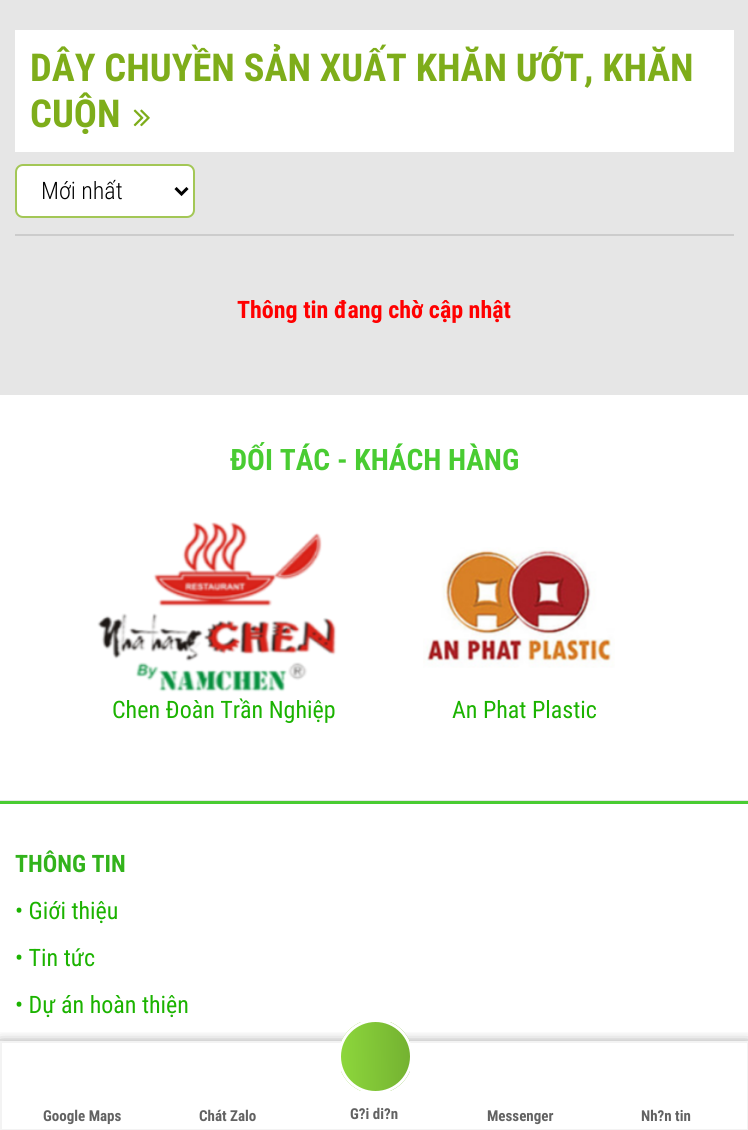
import math
import cairo


def round_path(ctx, x, y, w, h, r):
	ctx.new_sub_path()
	for i, (u, v) in enumerate([(x + w - r, y + h - r), (x + r, y + h - r), (x + r, y + r), (x + w - r, y + r)]):
		ctx.arc(u, v, r, i * math.pi / 2, (i + 1) * math.pi / 2)
	ctx.close_path()

def blur_box(ctx, x, y, w, h, r, blur, alpha):
	ctx.push_group_with_content(cairo.CONTENT_ALPHA)
	ctx.set_operator(cairo.OPERATOR_SOURCE)
	for i in range(15, -16, -2):
		e = blur * i / 6
		if min(w, h) + 2 * e > 0:
			ctx.set_source_rgba(0, 0, 0, alpha * math.erfc((i - 1) / 8.5) / 2)
			round_path(ctx, x - e, y - e, w + 2 * e, h + 2 * e, max(0, min(r + e + blur * .6, min(w, h) / 2 + e)))
			ctx.fill()
	ctx.mask(ctx.pop_group())

def paste(ctx, path, x, y, w, h):
	ctx.save()
	ctx.set_source_surface(cairo.ImageSurface.create_from_png(path), x, y)
	ctx.rectangle(x, y, w, h)
	ctx.fill()
	ctx.restore()

def draw(ctx):
	ctx.set_source_rgb(1, 1, 1)
	ctx.paint()
	ctx.set_source_rgb(0.902, 0.902, 0.902)
	ctx.rectangle(0, 0, 748, 395)
	ctx.fill()
	ctx.set_source_rgb(1, 1, 1)
	ctx.rectangle(15, 30, 719, 122)
	ctx.fill()
	ctx.select_font_face('Roboto Condensed', cairo.FONT_SLANT_NORMAL, cairo.FONT_WEIGHT_BOLD)
	ctx.set_font_size(38.4)
	ctx.set_source_rgb(0.494, 0.678, 0.102)
	ctx.move_to(30, 81)
	ctx.show_text('DÂY CHUYỀN SẢN XUẤT KHĂN ƯỚT, KHĂN')
	ctx.move_to(30, 127)
	ctx.show_text('CUỘN')
	paste(ctx, 'media/1.png', 133, 109, 17, 18)
	ctx.set_source_rgb(1, 1, 1)
	round_path(ctx, 16, 165, 178, 52, 7)
	ctx.fill_preserve()
	ctx.set_source_rgb(0.639, 0.78, 0.337)
	ctx.stroke()
	ctx.new_path()
	ctx.move_to(175.5, 188)
	ctx.line_to(181.5, 194)
	ctx.line_to(187.5, 188)
	ctx.set_source_rgb(0, 0, 0)
	ctx.set_line_width(3)
	ctx.stroke()
	ctx.select_font_face('Roboto Condensed Light')
	ctx.set_font_size(24)
	ctx.move_to(41, 199)
	ctx.show_text('Mới nhất')
	ctx.set_source_rgb(0.8, 0.8, 0.8)
	ctx.rectangle(15, 234, 719, 2)
	ctx.fill()
	ctx.select_font_face('Roboto Condensed', cairo.FONT_SLANT_NORMAL, cairo.FONT_WEIGHT_BOLD)
	ctx.set_source_rgb(1, 0, 0)
	ctx.move_to(237, 318)
	ctx.show_text('Thông tin đang chờ cập nhật')
	ctx.set_source_rgb(0.902, 0.902, 0.902)
	ctx.rectangle(0, 800, 748, 1)
	ctx.fill()
	ctx.set_font_size(29.5)
	ctx.set_source_rgb(0.286, 0.8, 0.196)
	ctx.move_to(230, 470)
	ctx.show_text('ĐỐI TÁC - KHÁCH HÀNG')
	paste(ctx, 'media/2.png', 97, 522, 240, 170)
	ctx.select_font_face('Roboto Condensed')
	ctx.set_font_size(24)
	ctx.set_source_rgb(0.106, 0.702, 0)
	ctx.move_to(112, 718)
	ctx.show_text('Chen Đoàn Trần Nghiệp')
	paste(ctx, 'media/3.png', 423, 547, 192, 121)
	ctx.move_to(452, 718)
	ctx.show_text('An Phat Plastic')
	ctx.set_source_rgb(0.286, 0.8, 0.196)
	ctx.rectangle(0, 801, 748, 3)
	ctx.fill()
	ctx.select_font_face('Roboto Condensed', cairo.FONT_SLANT_NORMAL, cairo.FONT_WEIGHT_BOLD)
	ctx.set_source_rgb(0.196, 0.702, 0.106)
	ctx.move_to(15, 872)
	ctx.show_text('THÔNG TIN')
	ctx.select_font_face('Roboto Condensed')
	ctx.set_source_rgb(0.106, 0.702, 0)
	for x, y, s in [
		(15, 919, '• Giới thiệu'),
		(15, 966, '• Tin tức'),
		(15, 1013, '• Dự án hoàn thiện'),
	]:
		ctx.move_to(x, y)
		ctx.show_text(s)
	ctx.save()
	ctx.rectangle(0, 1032, 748, 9)
	ctx.clip()
	ctx.set_source_rgb(0, 0, 0)
	blur_box(ctx, 0, 1047, 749, 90, 0, 7.5, 0.9)
	ctx.restore()
	ctx.rectangle(1, 1042, 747, 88)
	ctx.set_source_rgba(0.949, 0.949, 0.949, 0.9)
	ctx.set_line_width(2)
	ctx.stroke()
	ctx.select_font_face('Roboto Condensed', cairo.FONT_SLANT_NORMAL, cairo.FONT_WEIGHT_BOLD)
	ctx.set_font_size(15)
	ctx.set_source_rgb(0.384, 0.384, 0.384)
	ctx.move_to(43, 1121)
	ctx.show_text('Google Maps')
	ctx.move_to(199, 1121)
	ctx.show_text('Chát Zalo')
	ctx.save()
	round_path(ctx, 338, 1019, 75, 75, 37.5)
	ctx.clip()
	gradient = cairo.LinearGradient(340, 1057, 410, 1055)
	gradient.add_color_stop_rgba(0, 0.553, 0.843, 0.235, 1)
	gradient.add_color_stop_rgba(1, 0.455, 0.698, 0.192, 1)
	ctx.set_source(gradient)
	ctx.rectangle(341, 1022, 69, 69)
	ctx.fill()
	ctx.restore()
	ctx.arc(375.5, 1056.5, 36, 0, 2 * math.pi)
	ctx.set_source_rgb(1, 1, 1)
	ctx.set_line_width(3)
	ctx.stroke()
	ctx.set_source_rgb(0.384, 0.384, 0.384)
	for x, y, s in [
		(350, 1119, 'G?i di?n'),
		(487, 1121, 'Messenger'),
		(641, 1121, 'Nh?n tin'),
	]:
		ctx.move_to(x, y)
		ctx.show_text(s)


surface = cairo.ImageSurface(cairo.FORMAT_RGB24, 748, 1130)
ctx = cairo.Context(surface)
options = cairo.FontOptions()
options.set_hint_metrics(cairo.HINT_METRICS_OFF)
options.set_hint_style(cairo.HINT_STYLE_NONE)
ctx.set_font_options(options)
ctx.set_miter_limit(4)
draw(ctx)
surface.write_to_png('image.png')
